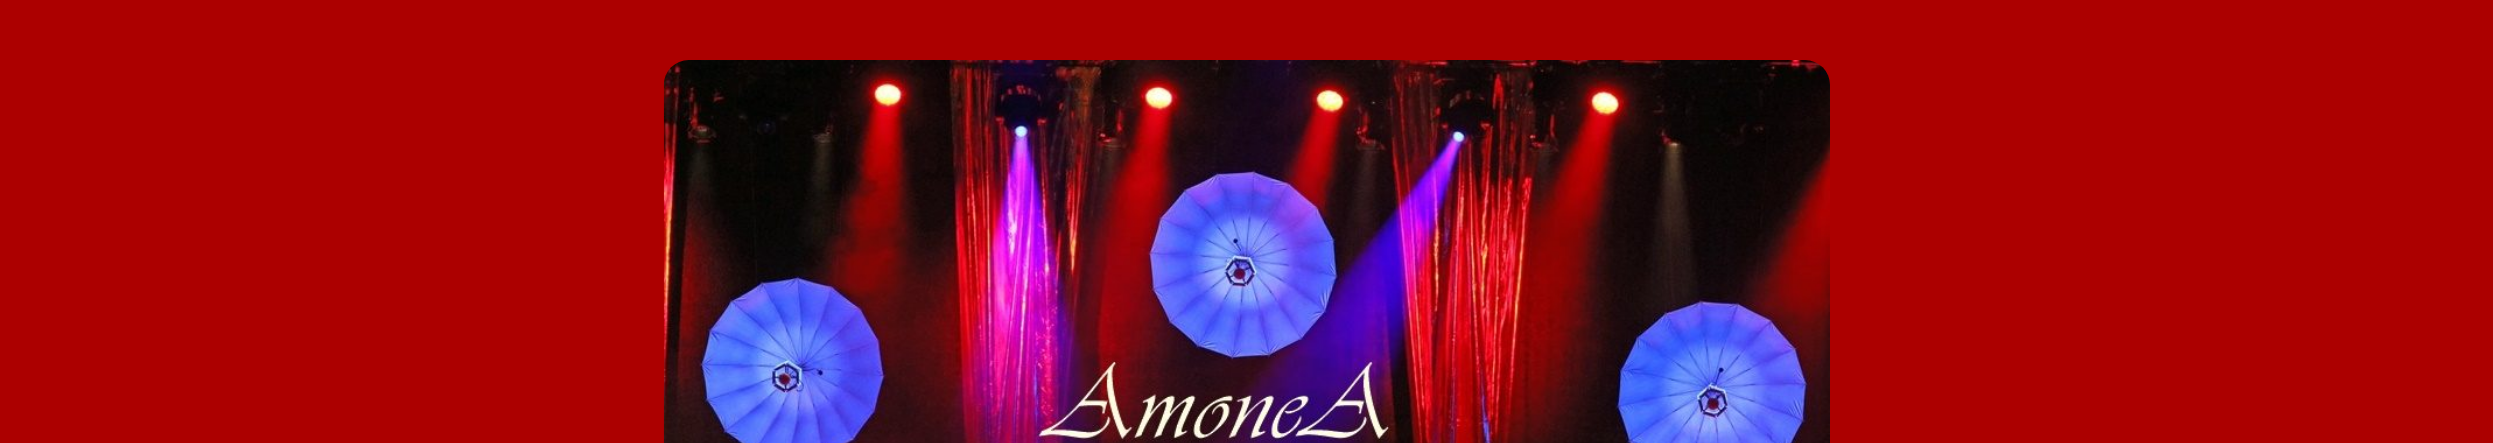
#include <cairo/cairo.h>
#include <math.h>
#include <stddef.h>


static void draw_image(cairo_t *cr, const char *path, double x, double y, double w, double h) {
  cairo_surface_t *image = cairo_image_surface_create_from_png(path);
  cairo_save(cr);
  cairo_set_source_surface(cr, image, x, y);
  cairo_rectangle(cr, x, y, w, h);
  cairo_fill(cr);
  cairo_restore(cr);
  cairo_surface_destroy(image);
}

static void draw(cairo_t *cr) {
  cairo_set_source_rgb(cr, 172 / 255.0, 0, 0);
  cairo_paint(cr);
  draw_image(cr, "images/1.png", 663, 60, 1167, 383);
}

int main(void) {
  cairo_surface_t *surface = cairo_image_surface_create(CAIRO_FORMAT_RGB24, 2493, 443);
  cairo_t *cr = cairo_create(surface);
  cairo_font_options_t *options = cairo_font_options_create();
  cairo_font_options_set_hint_metrics(options, CAIRO_HINT_METRICS_OFF);
  cairo_font_options_set_hint_style(options, CAIRO_HINT_STYLE_NONE);
  cairo_set_font_options(cr, options);
  cairo_set_miter_limit(cr, 4);
  draw(cr);
  cairo_surface_write_to_png(surface, "out.png");
  cairo_font_options_destroy(options);
  cairo_destroy(cr);
  cairo_surface_destroy(surface);
  return 0;
}
